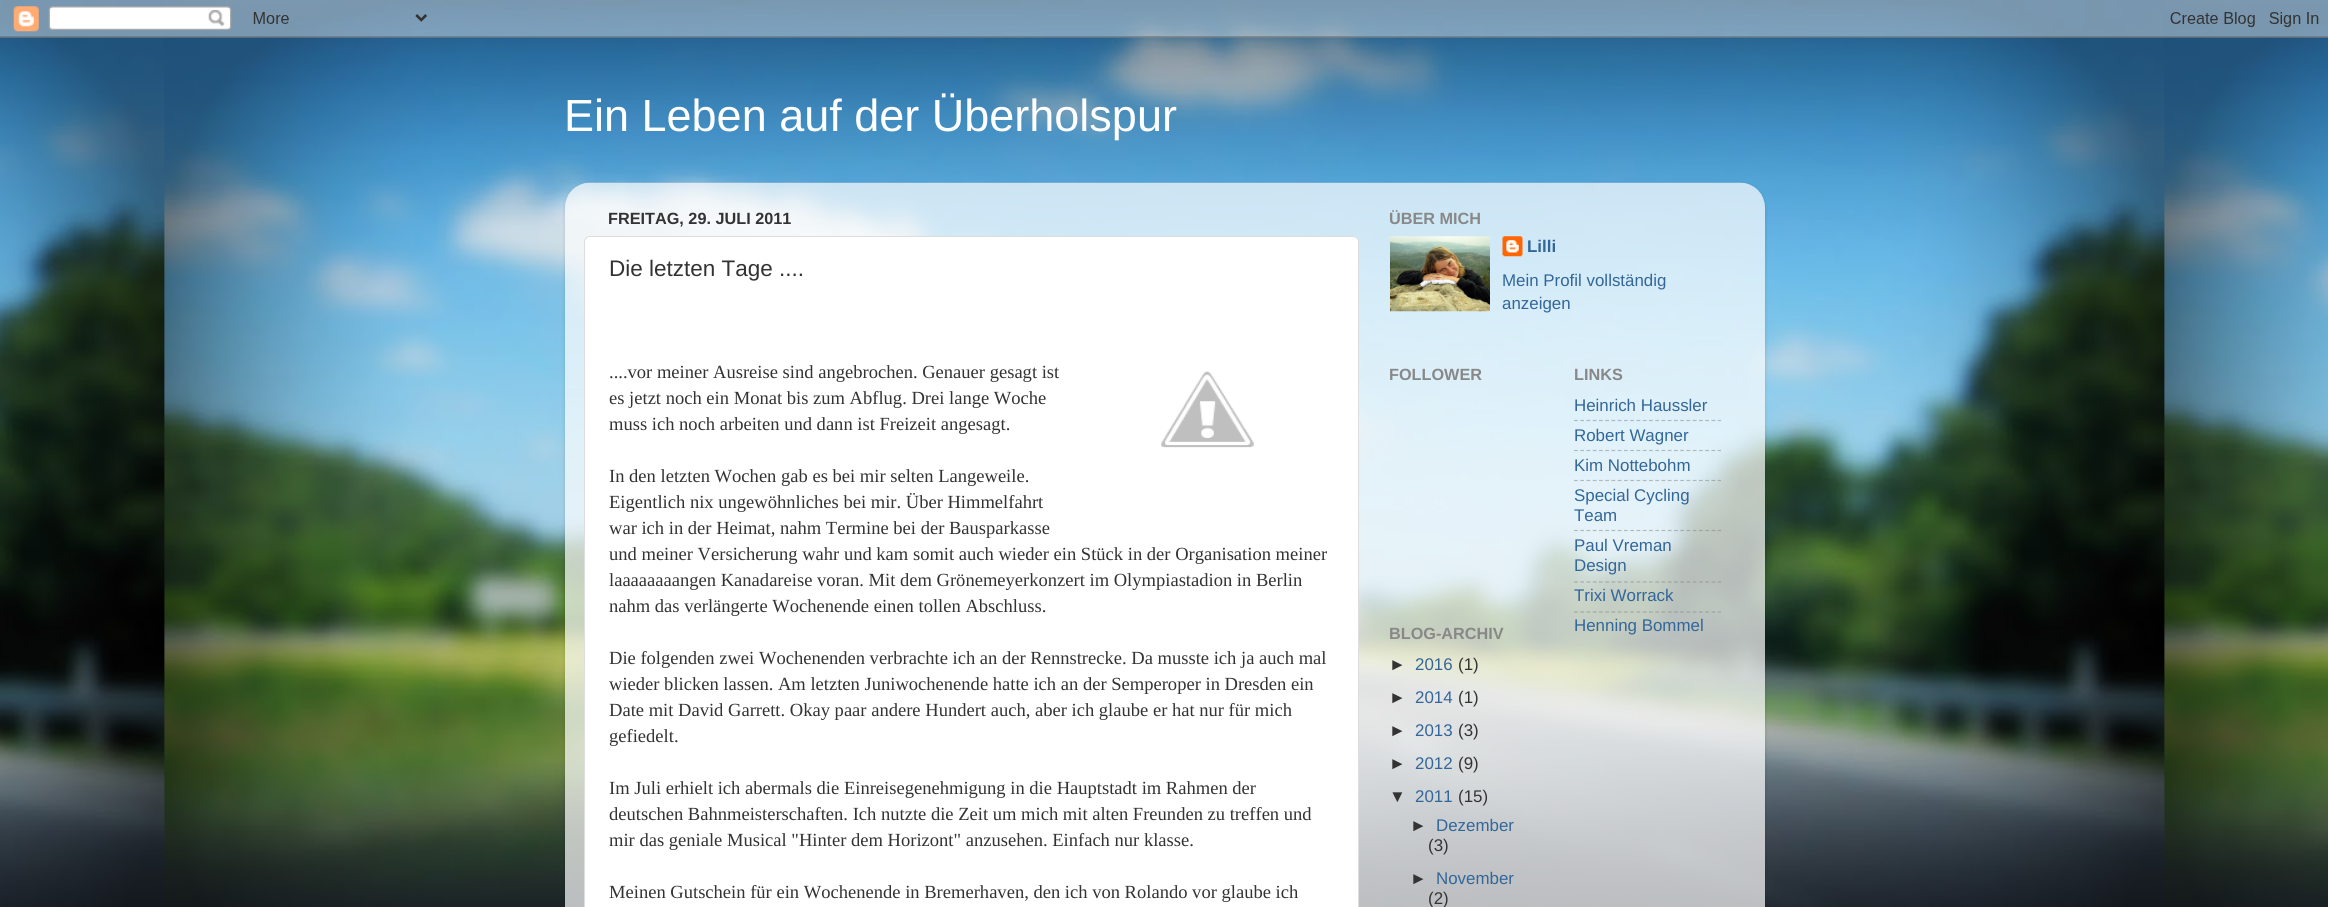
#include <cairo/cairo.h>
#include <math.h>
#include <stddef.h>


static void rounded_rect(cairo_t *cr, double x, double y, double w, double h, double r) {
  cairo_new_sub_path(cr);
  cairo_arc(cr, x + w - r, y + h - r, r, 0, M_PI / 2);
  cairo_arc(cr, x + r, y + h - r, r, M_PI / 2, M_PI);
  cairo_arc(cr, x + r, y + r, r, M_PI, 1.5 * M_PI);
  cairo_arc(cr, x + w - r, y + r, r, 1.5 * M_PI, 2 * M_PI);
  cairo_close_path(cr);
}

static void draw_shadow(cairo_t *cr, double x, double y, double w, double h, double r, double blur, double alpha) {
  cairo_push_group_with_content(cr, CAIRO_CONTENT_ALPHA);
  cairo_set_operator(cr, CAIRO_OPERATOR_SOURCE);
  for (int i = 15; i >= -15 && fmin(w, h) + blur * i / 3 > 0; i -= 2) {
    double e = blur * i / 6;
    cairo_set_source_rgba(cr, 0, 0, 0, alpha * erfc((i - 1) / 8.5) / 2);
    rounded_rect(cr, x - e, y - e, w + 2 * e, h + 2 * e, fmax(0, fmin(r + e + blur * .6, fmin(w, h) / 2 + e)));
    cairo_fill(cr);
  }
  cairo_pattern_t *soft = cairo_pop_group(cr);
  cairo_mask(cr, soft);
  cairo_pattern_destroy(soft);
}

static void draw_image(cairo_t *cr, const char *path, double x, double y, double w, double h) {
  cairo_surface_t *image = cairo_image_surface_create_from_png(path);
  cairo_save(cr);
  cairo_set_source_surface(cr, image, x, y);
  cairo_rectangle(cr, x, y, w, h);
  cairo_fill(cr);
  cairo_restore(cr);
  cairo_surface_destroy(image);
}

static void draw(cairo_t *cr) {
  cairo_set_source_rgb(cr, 1, 1, 1);
  cairo_paint(cr);
  draw_image(cr, "images/1.png", 0, 0, 2328, 907);
  draw_image(cr, "images/2.png", 0, 0, 2328, 38);
  cairo_save(cr);
  cairo_set_fill_rule(cr, CAIRO_FILL_RULE_EVEN_ODD);
  cairo_new_path(cr);
  cairo_move_to(cr, 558, 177);
  cairo_line_to(cr, 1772, 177);
  cairo_line_to(cr, 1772, 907);
  cairo_line_to(cr, 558, 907);
  cairo_close_path(cr);
  cairo_move_to(cr, 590, 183);
  cairo_line_to(cr, 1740, 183);
  cairo_curve_to(cr, 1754, 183, 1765, 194, 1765, 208);
  cairo_line_to(cr, 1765, 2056);
  cairo_line_to(cr, 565, 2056);
  cairo_line_to(cr, 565, 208);
  cairo_curve_to(cr, 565, 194, 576, 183, 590, 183);
  cairo_close_path(cr);
  cairo_clip(cr);
  cairo_set_source_rgb(cr, 0, 0, 0);
  draw_shadow(cr, 565, 184, 1200, 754, 25, 2, 0.15);
  cairo_restore(cr);
  draw_image(cr, "images/3.png", 565, 182, 1200, 725);
  cairo_set_source_rgb(cr, 1, 1, 1);
  rounded_rect(cr, 584.5, 236.5, 774, 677, 5.5);
  cairo_fill_preserve(cr);
  cairo_set_source_rgb(cr, 221 / 255.0, 221 / 255.0, 221 / 255.0);
  cairo_set_line_width(cr, 1);
  cairo_stroke(cr);
  draw_image(cr, "images/4.png", 1161, 371, 93, 77);
  draw_image(cr, "images/5.png", 1390, 236, 100, 76);
  draw_image(cr, "images/6.png", 1502, 236, 21, 21);
  cairo_new_path(cr);
  cairo_move_to(cr, 1574, 420.5);
  cairo_line_to(cr, 1721, 420.5);
  cairo_set_source_rgb(cr, 176 / 255.0, 185 / 255.0, 189 / 255.0);
  cairo_set_line_width(cr, 1.2);
  cairo_set_dash(cr, (double[]){3.75, 2.5}, 2, 0);
  cairo_stroke(cr);
  cairo_new_path(cr);
  cairo_move_to(cr, 1574, 450.5);
  cairo_line_to(cr, 1721, 450.5);
  cairo_set_source_rgba(cr, 128 / 255.0, 128 / 255.0, 128 / 255.0, 0.5);
  cairo_stroke(cr);
  cairo_new_path(cr);
  cairo_move_to(cr, 1574, 480.5);
  cairo_line_to(cr, 1721, 480.5);
  cairo_stroke(cr);
  cairo_new_path(cr);
  cairo_move_to(cr, 1574, 530.5);
  cairo_line_to(cr, 1721, 530.5);
  cairo_stroke(cr);
  cairo_new_path(cr);
  cairo_move_to(cr, 1574, 582);
  cairo_line_to(cr, 1721, 582);
  cairo_stroke(cr);
  cairo_new_path(cr);
  cairo_move_to(cr, 1574, 612);
  cairo_line_to(cr, 1721, 612);
  cairo_stroke(cr);
  cairo_select_font_face(cr, "Liberation Sans", CAIRO_FONT_SLANT_NORMAL, CAIRO_FONT_WEIGHT_NORMAL);
  cairo_set_font_size(cr, 45);
  cairo_set_source_rgb(cr, 1, 1, 1);
  cairo_move_to(cr, 564, 131);
  cairo_show_text(cr, "Ein Leben auf der Überholspur");
  cairo_select_font_face(cr, "Liberation Sans", CAIRO_FONT_SLANT_NORMAL, CAIRO_FONT_WEIGHT_BOLD);
  cairo_set_font_size(cr, 16.25);
  cairo_set_source_rgb(cr, 51 / 255.0, 51 / 255.0, 51 / 255.0);
  cairo_move_to(cr, 608, 224);
  cairo_show_text(cr, "FREITAG, 29. JULI 2011");
  cairo_select_font_face(cr, "Liberation Sans", CAIRO_FONT_SLANT_NORMAL, CAIRO_FONT_WEIGHT_NORMAL);
  cairo_set_font_size(cr, 22.5);
  cairo_move_to(cr, 609, 276);
  cairo_show_text(cr, "Die letzten Tage ....");
  cairo_select_font_face(cr, "Liberation Serif", CAIRO_FONT_SLANT_NORMAL, CAIRO_FONT_WEIGHT_NORMAL);
  cairo_set_font_size(cr, 18.55);
  cairo_move_to(cr, 609, 378);
  cairo_show_text(cr, "....vor meiner Ausreise sind angebrochen. Genauer gesagt ist");
  cairo_move_to(cr, 609, 404);
  cairo_show_text(cr, "es jetzt noch ein Monat bis zum Abflug. Drei lange Woche");
  cairo_move_to(cr, 609, 430);
  cairo_show_text(cr, "muss ich noch arbeiten und dann ist Freizeit angesagt.");
  cairo_move_to(cr, 609, 482);
  cairo_show_text(cr, "In den letzten Wochen gab es bei mir selten Langeweile.");
  cairo_move_to(cr, 609, 508);
  cairo_show_text(cr, "Eigentlich nix ungewöhnliches bei mir. Über Himmelfahrt");
  cairo_move_to(cr, 609, 534);
  cairo_show_text(cr, "war ich in der Heimat, nahm Termine bei der Bausparkasse");
  cairo_move_to(cr, 609, 560);
  cairo_show_text(cr, "und meiner Versicherung wahr und kam somit auch wieder ein Stück in der Organisation meiner");
  cairo_move_to(cr, 609, 586);
  cairo_show_text(cr, "laaaaaaaangen Kanadareise voran. Mit dem Grönemeyerkonzert im Olympiastadion in Berlin");
  cairo_move_to(cr, 609, 612);
  cairo_show_text(cr, "nahm das verlängerte Wochenende einen tollen Abschluss.");
  cairo_move_to(cr, 609, 664);
  cairo_show_text(cr, "Die folgenden zwei Wochenenden verbrachte ich an der Rennstrecke. Da musste ich ja auch mal");
  cairo_move_to(cr, 609, 690);
  cairo_show_text(cr, "wieder blicken lassen. Am letzten Juniwochenende hatte ich an der Semperoper in Dresden ein");
  cairo_move_to(cr, 609, 716);
  cairo_show_text(cr, "Date mit David Garrett. Okay paar andere Hundert auch, aber ich glaube er hat nur für mich");
  cairo_move_to(cr, 609, 742);
  cairo_show_text(cr, "gefiedelt.");
  cairo_move_to(cr, 609, 794);
  cairo_show_text(cr, "Im Juli erhielt ich abermals die Einreisegenehmigung in die Hauptstadt im Rahmen der");
  cairo_move_to(cr, 609, 820);
  cairo_show_text(cr, "deutschen Bahnmeisterschaften. Ich nutzte die Zeit um mich mit alten Freunden zu treffen und");
  cairo_move_to(cr, 609, 846);
  cairo_show_text(cr, "mir das geniale Musical \"Hinter dem Horizont\" anzusehen. Einfach nur klasse.");
  cairo_move_to(cr, 609, 898);
  cairo_show_text(cr, "Meinen Gutschein für ein Wochenende in Bremerhaven, den ich von Rolando vor glaube ich");
  cairo_select_font_face(cr, "Liberation Sans", CAIRO_FONT_SLANT_NORMAL, CAIRO_FONT_WEIGHT_BOLD);
  cairo_set_font_size(cr, 16.25);
  cairo_set_source_rgb(cr, 136 / 255.0, 136 / 255.0, 136 / 255.0);
  cairo_move_to(cr, 1389, 224);
  cairo_show_text(cr, "ÜBER MICH");
  cairo_set_font_size(cr, 16.9);
  cairo_set_source_rgb(cr, 51 / 255.0, 102 / 255.0, 153 / 255.0);
  cairo_move_to(cr, 1527, 252);
  cairo_show_text(cr, "Lilli");
  cairo_select_font_face(cr, "Liberation Sans", CAIRO_FONT_SLANT_NORMAL, CAIRO_FONT_WEIGHT_NORMAL);
  cairo_move_to(cr, 1502, 286);
  cairo_show_text(cr, "Mein Profil vollständig");
  cairo_move_to(cr, 1502, 309);
  cairo_show_text(cr, "anzeigen");
  cairo_select_font_face(cr, "Liberation Sans", CAIRO_FONT_SLANT_NORMAL, CAIRO_FONT_WEIGHT_BOLD);
  cairo_set_font_size(cr, 16.25);
  cairo_set_source_rgb(cr, 136 / 255.0, 136 / 255.0, 136 / 255.0);
  cairo_move_to(cr, 1389, 380);
  cairo_show_text(cr, "FOLLOWER");
  cairo_move_to(cr, 1389, 639);
  cairo_show_text(cr, "BLOG-ARCHIV");
  cairo_select_font_face(cr, "Liberation Sans", CAIRO_FONT_SLANT_NORMAL, CAIRO_FONT_WEIGHT_NORMAL);
  cairo_set_font_size(cr, 16.9);
  cairo_set_source_rgb(cr, 51 / 255.0, 51 / 255.0, 51 / 255.0);
  cairo_move_to(cr, 1389, 670);
  cairo_show_text(cr, "►");
  cairo_set_source_rgb(cr, 51 / 255.0, 102 / 255.0, 153 / 255.0);
  cairo_move_to(cr, 1415, 670);
  cairo_show_text(cr, "2016");
  cairo_set_source_rgb(cr, 51 / 255.0, 51 / 255.0, 51 / 255.0);
  cairo_move_to(cr, 1458, 670);
  cairo_show_text(cr, "(1)");
  cairo_move_to(cr, 1389, 703);
  cairo_show_text(cr, "►");
  cairo_set_source_rgb(cr, 51 / 255.0, 102 / 255.0, 153 / 255.0);
  cairo_move_to(cr, 1415, 703);
  cairo_show_text(cr, "2014");
  cairo_set_source_rgb(cr, 51 / 255.0, 51 / 255.0, 51 / 255.0);
  cairo_move_to(cr, 1458, 703);
  cairo_show_text(cr, "(1)");
  cairo_move_to(cr, 1389, 736);
  cairo_show_text(cr, "►");
  cairo_set_source_rgb(cr, 51 / 255.0, 102 / 255.0, 153 / 255.0);
  cairo_move_to(cr, 1415, 736);
  cairo_show_text(cr, "2013");
  cairo_set_source_rgb(cr, 51 / 255.0, 51 / 255.0, 51 / 255.0);
  cairo_move_to(cr, 1458, 736);
  cairo_show_text(cr, "(3)");
  cairo_move_to(cr, 1389, 769);
  cairo_show_text(cr, "►");
  cairo_set_source_rgb(cr, 51 / 255.0, 102 / 255.0, 153 / 255.0);
  cairo_move_to(cr, 1415, 769);
  cairo_show_text(cr, "2012");
  cairo_set_source_rgb(cr, 51 / 255.0, 51 / 255.0, 51 / 255.0);
  cairo_move_to(cr, 1458, 769);
  cairo_show_text(cr, "(9)");
  cairo_move_to(cr, 1389, 802);
  cairo_show_text(cr, "▼");
  cairo_set_source_rgb(cr, 51 / 255.0, 102 / 255.0, 153 / 255.0);
  cairo_move_to(cr, 1415, 802);
  cairo_show_text(cr, "2011");
  cairo_set_source_rgb(cr, 51 / 255.0, 51 / 255.0, 51 / 255.0);
  cairo_move_to(cr, 1458, 802);
  cairo_show_text(cr, "(15)");
  cairo_move_to(cr, 1410, 831);
  cairo_show_text(cr, "►");
  cairo_set_source_rgb(cr, 51 / 255.0, 102 / 255.0, 153 / 255.0);
  cairo_move_to(cr, 1436, 831);
  cairo_show_text(cr, "Dezember");
  cairo_set_source_rgb(cr, 51 / 255.0, 51 / 255.0, 51 / 255.0);
  cairo_move_to(cr, 1428, 851);
  cairo_show_text(cr, "(3)");
  cairo_move_to(cr, 1410, 884);
  cairo_show_text(cr, "►");
  cairo_set_source_rgb(cr, 51 / 255.0, 102 / 255.0, 153 / 255.0);
  cairo_move_to(cr, 1436, 884);
  cairo_show_text(cr, "November");
  cairo_set_source_rgb(cr, 51 / 255.0, 51 / 255.0, 51 / 255.0);
  cairo_move_to(cr, 1428, 904);
  cairo_show_text(cr, "(2)");
  cairo_select_font_face(cr, "Liberation Sans", CAIRO_FONT_SLANT_NORMAL, CAIRO_FONT_WEIGHT_BOLD);
  cairo_set_font_size(cr, 16.25);
  cairo_set_source_rgb(cr, 136 / 255.0, 136 / 255.0, 136 / 255.0);
  cairo_move_to(cr, 1574, 380);
  cairo_show_text(cr, "LINKS");
  cairo_select_font_face(cr, "Liberation Sans", CAIRO_FONT_SLANT_NORMAL, CAIRO_FONT_WEIGHT_NORMAL);
  cairo_set_font_size(cr, 16.9);
  cairo_set_source_rgb(cr, 51 / 255.0, 102 / 255.0, 153 / 255.0);
  cairo_move_to(cr, 1574, 411);
  cairo_show_text(cr, "Heinrich Haussler");
  cairo_move_to(cr, 1574, 441);
  cairo_show_text(cr, "Robert Wagner");
  cairo_move_to(cr, 1574, 471);
  cairo_show_text(cr, "Kim Nottebohm");
  cairo_move_to(cr, 1574, 501);
  cairo_show_text(cr, "Special Cycling");
  cairo_move_to(cr, 1574, 521);
  cairo_show_text(cr, "Team");
  cairo_move_to(cr, 1574, 551);
  cairo_show_text(cr, "Paul Vreman");
  cairo_move_to(cr, 1574, 571);
  cairo_show_text(cr, "Design");
  cairo_move_to(cr, 1574, 601);
  cairo_show_text(cr, "Trixi Worrack");
  cairo_move_to(cr, 1574, 631);
  cairo_show_text(cr, "Henning Bommel");
}

int main(void) {
  cairo_surface_t *surface = cairo_image_surface_create(CAIRO_FORMAT_RGB24, 2328, 907);
  cairo_t *cr = cairo_create(surface);
  cairo_font_options_t *options = cairo_font_options_create();
  cairo_font_options_set_hint_metrics(options, CAIRO_HINT_METRICS_OFF);
  cairo_font_options_set_hint_style(options, CAIRO_HINT_STYLE_NONE);
  cairo_set_font_options(cr, options);
  cairo_set_miter_limit(cr, 4);
  draw(cr);
  cairo_surface_write_to_png(surface, "out.png");
  cairo_font_options_destroy(options);
  cairo_destroy(cr);
  cairo_surface_destroy(surface);
  return 0;
}
